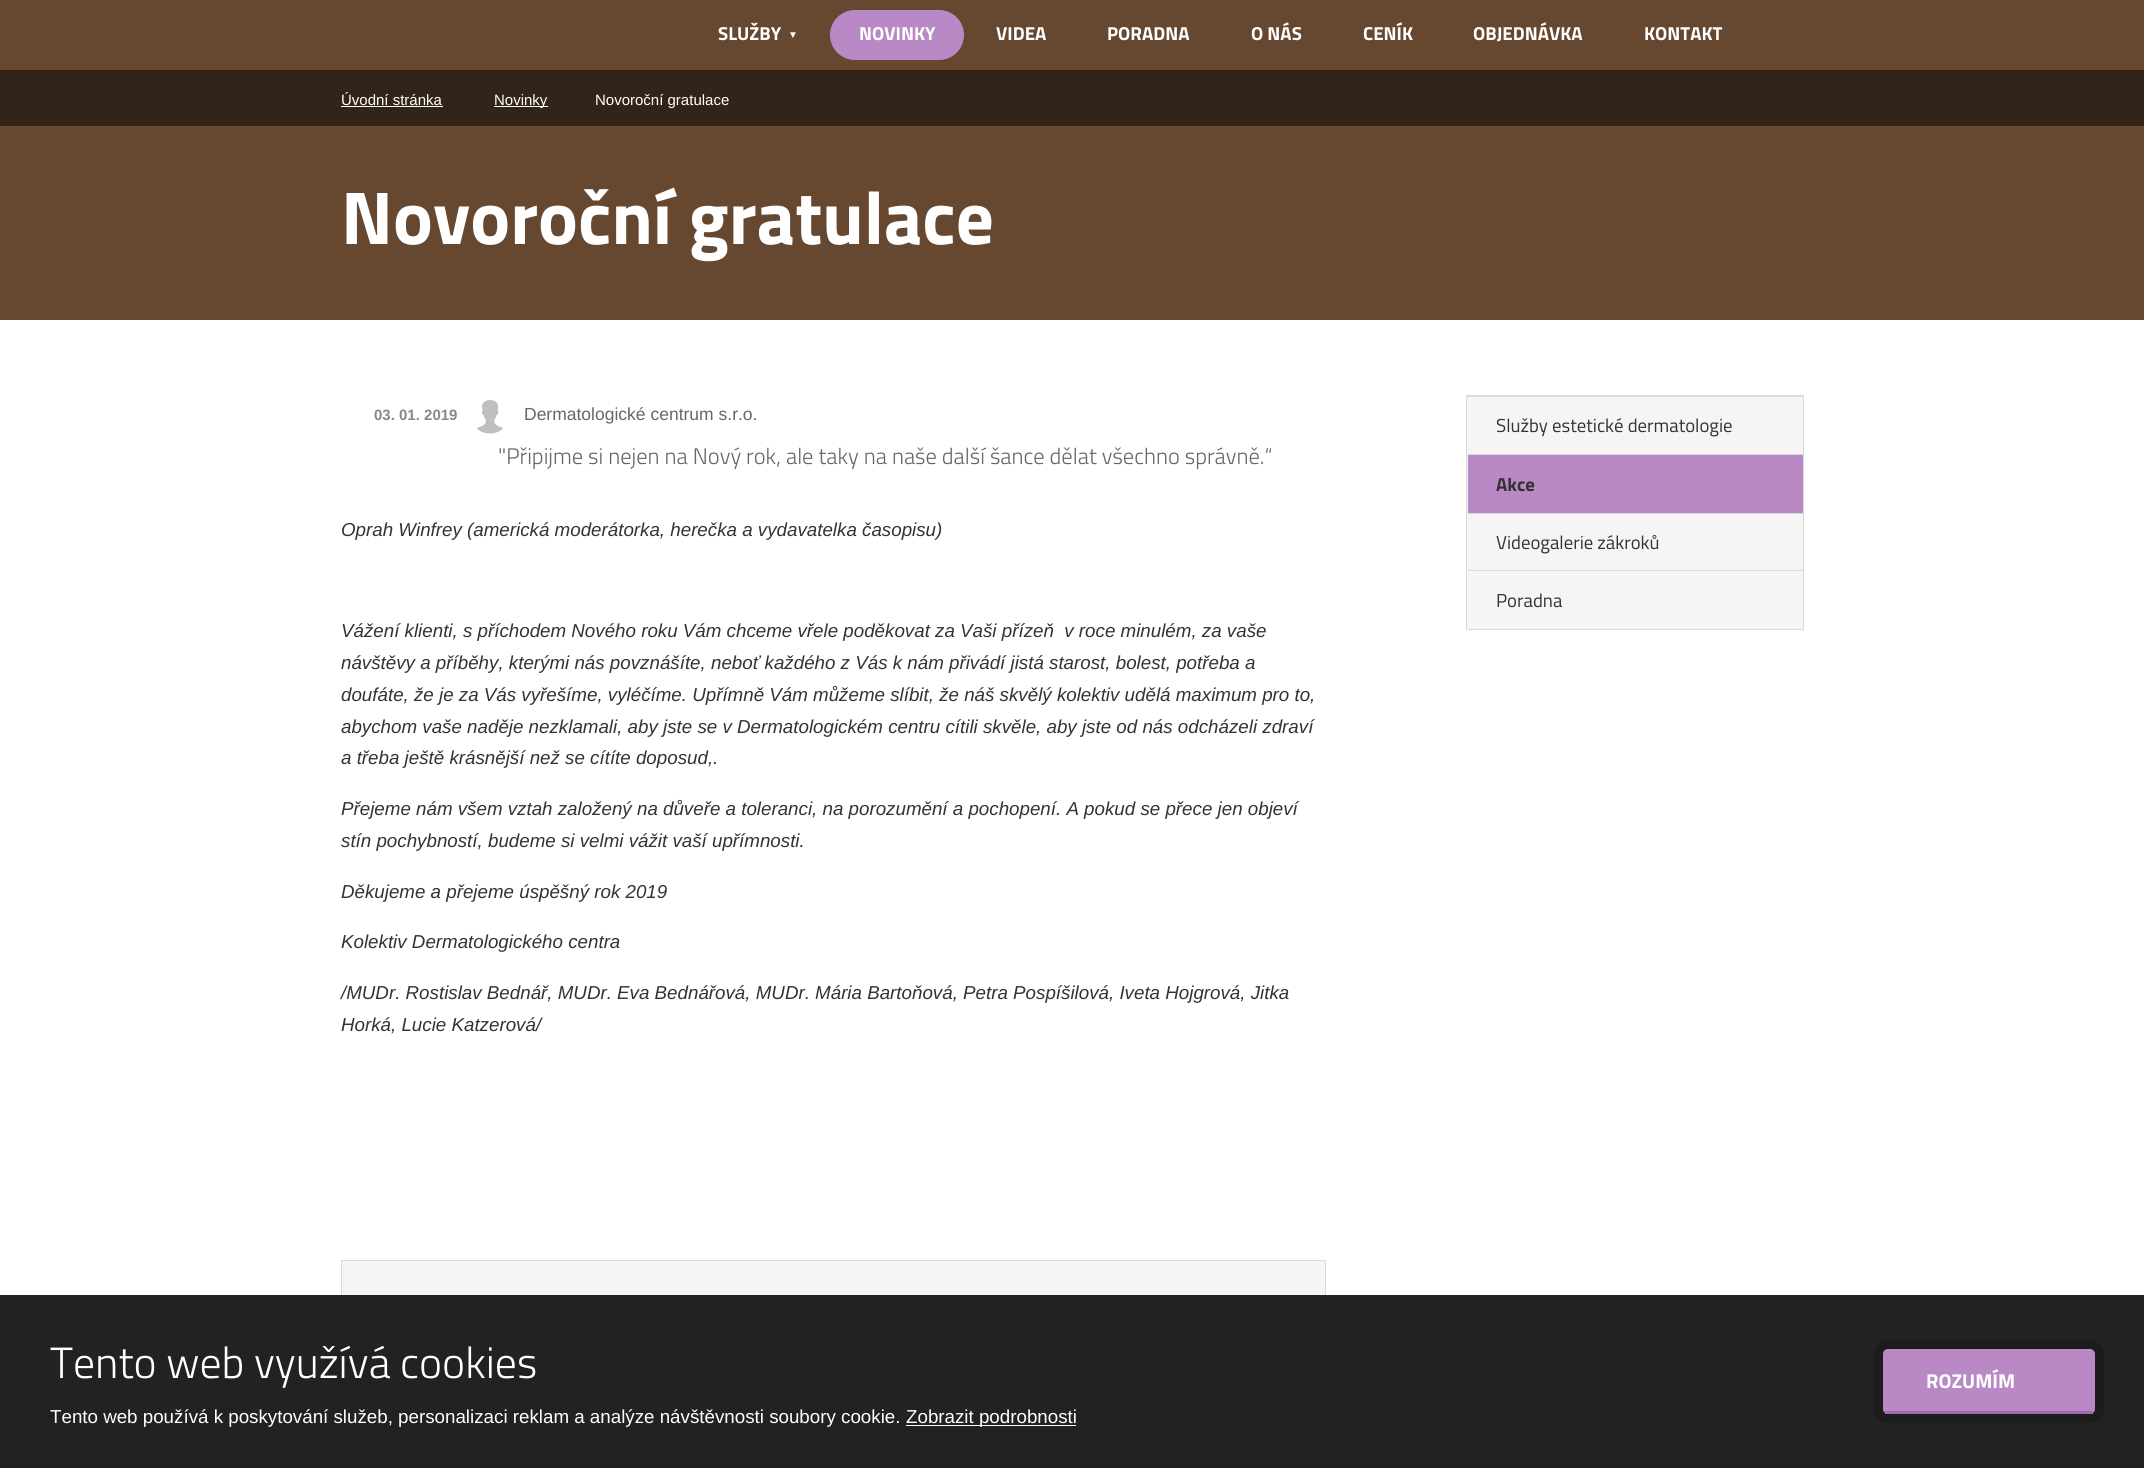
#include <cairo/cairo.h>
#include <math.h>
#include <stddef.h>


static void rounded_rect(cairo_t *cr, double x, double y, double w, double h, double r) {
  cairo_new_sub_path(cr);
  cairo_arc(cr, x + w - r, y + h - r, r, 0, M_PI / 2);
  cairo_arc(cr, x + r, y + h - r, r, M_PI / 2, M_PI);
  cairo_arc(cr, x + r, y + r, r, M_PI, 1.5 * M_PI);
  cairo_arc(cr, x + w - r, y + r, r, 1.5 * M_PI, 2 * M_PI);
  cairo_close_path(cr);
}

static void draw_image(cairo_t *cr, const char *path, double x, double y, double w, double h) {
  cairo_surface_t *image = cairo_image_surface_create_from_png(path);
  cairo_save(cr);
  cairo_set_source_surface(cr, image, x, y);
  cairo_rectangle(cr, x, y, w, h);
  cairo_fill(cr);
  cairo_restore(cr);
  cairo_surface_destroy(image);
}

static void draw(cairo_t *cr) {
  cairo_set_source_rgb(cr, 1, 1, 1);
  cairo_paint(cr);
  cairo_set_source_rgb(cr, 102 / 255.0, 72 / 255.0, 49 / 255.0);
  cairo_rectangle(cr, 0, 0, 2144, 70);
  cairo_fill(cr);
  cairo_set_source_rgb(cr, 184 / 255.0, 137 / 255.0, 197 / 255.0);
  rounded_rect(cr, 830, 10, 134, 50, 25);
  cairo_fill(cr);
  cairo_set_source_rgb(cr, 102 / 255.0, 72 / 255.0, 49 / 255.0);
  cairo_rectangle(cr, 0, 126, 2144, 194);
  cairo_fill(cr);
  cairo_set_source_rgb(cr, 50 / 255.0, 36 / 255.0, 24 / 255.0);
  cairo_rectangle(cr, 0, 70, 2144, 56);
  cairo_fill(cr);
  cairo_set_source_rgb(cr, 1, 1, 1);
  cairo_rectangle(cr, 341, 106, 102, 1);
  cairo_fill(cr);
  cairo_rectangle(cr, 494, 106, 54, 1);
  cairo_fill(cr);
  draw_image(cr, "images/1.png", 476, 400, 28, 34);
  cairo_set_source_rgb(cr, 245 / 255.0, 245 / 255.0, 245 / 255.0);
  cairo_rectangle(cr, 342, 1261, 983, 34);
  cairo_fill(cr);
  cairo_rectangle(cr, 341.5, 1260.5, 984, 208);
  cairo_set_source_rgb(cr, 217 / 255.0, 217 / 255.0, 217 / 255.0);
  cairo_set_line_width(cr, 1);
  cairo_stroke(cr);
  cairo_rectangle(cr, 1466, 395, 338, 2);
  cairo_fill(cr);
  cairo_set_source_rgb(cr, 245 / 255.0, 245 / 255.0, 245 / 255.0);
  cairo_rectangle(cr, 1467, 397, 336, 233);
  cairo_fill(cr);
  cairo_set_source_rgb(cr, 217 / 255.0, 217 / 255.0, 217 / 255.0);
  cairo_rectangle(cr, 1803, 396, 1, 234);
  cairo_fill(cr);
  cairo_rectangle(cr, 1466, 396, 1, 234);
  cairo_fill(cr);
  cairo_rectangle(cr, 1468, 454, 335, 1);
  cairo_fill(cr);
  cairo_set_source_rgb(cr, 184 / 255.0, 137 / 255.0, 197 / 255.0);
  cairo_rectangle(cr, 1468, 455, 335, 58);
  cairo_fill(cr);
  cairo_set_source_rgb(cr, 217 / 255.0, 217 / 255.0, 217 / 255.0);
  cairo_rectangle(cr, 1468, 513, 335, 1);
  cairo_fill(cr);
  cairo_rectangle(cr, 1468, 570, 335, 1);
  cairo_fill(cr);
  cairo_rectangle(cr, 1468, 629, 335, 1);
  cairo_fill(cr);
  cairo_set_source_rgb(cr, 34 / 255.0, 34 / 255.0, 34 / 255.0);
  cairo_rectangle(cr, 0, 1295, 2144, 173);
  cairo_fill(cr);
  cairo_set_source_rgb(cr, 1, 1, 1);
  cairo_rectangle(cr, 906, 1425, 170, 1);
  cairo_fill(cr);
  rounded_rect(cr, 1878.5, 1344.5, 221, 74, 9.5);
  cairo_set_source_rgb(cr, 28 / 255.0, 28 / 255.0, 28 / 255.0);
  cairo_set_line_width(cr, 9);
  cairo_stroke(cr);
  cairo_set_source_rgb(cr, 184 / 255.0, 137 / 255.0, 197 / 255.0);
  rounded_rect(cr, 1883, 1349, 212, 65, 5);
  cairo_fill(cr);
  cairo_set_source_rgb(cr, 163 / 255.0, 103 / 255.0, 180 / 255.0);
  cairo_rectangle(cr, 1885, 1411, 208, 3);
  cairo_fill(cr);
  cairo_select_font_face(cr, "Titillium Web", CAIRO_FONT_SLANT_NORMAL, CAIRO_FONT_WEIGHT_BOLD);
  cairo_set_font_size(cr, 18.75);
  cairo_set_source_rgb(cr, 1, 1, 1);
  cairo_move_to(cr, 718, 40);
  cairo_show_text(cr, "SLUŽBY");
  cairo_select_font_face(cr, "Liberation Serif", CAIRO_FONT_SLANT_NORMAL, CAIRO_FONT_WEIGHT_NORMAL);
  cairo_set_font_size(cr, 10);
  cairo_move_to(cr, 788, 38);
  cairo_show_text(cr, "▼");
  cairo_select_font_face(cr, "Titillium Web", CAIRO_FONT_SLANT_NORMAL, CAIRO_FONT_WEIGHT_BOLD);
  cairo_set_font_size(cr, 18.75);
  cairo_move_to(cr, 859, 40);
  cairo_show_text(cr, "NOVINKY");
  cairo_move_to(cr, 996, 40);
  cairo_show_text(cr, "VIDEA");
  cairo_move_to(cr, 1107, 40);
  cairo_show_text(cr, "PORADNA");
  cairo_move_to(cr, 1251, 40);
  cairo_show_text(cr, "O NÁS");
  cairo_move_to(cr, 1363, 40);
  cairo_show_text(cr, "CENÍK");
  cairo_move_to(cr, 1473, 40);
  cairo_show_text(cr, "OBJEDNÁVKA");
  cairo_move_to(cr, 1644, 40);
  cairo_show_text(cr, "KONTAKT");
  cairo_select_font_face(cr, "Liberation Sans", CAIRO_FONT_SLANT_NORMAL, CAIRO_FONT_WEIGHT_NORMAL);
  cairo_set_font_size(cr, 15);
  cairo_move_to(cr, 341, 105);
  cairo_show_text(cr, "Úvodní stránka");
  cairo_move_to(cr, 494, 105);
  cairo_show_text(cr, "Novinky");
  cairo_move_to(cr, 595, 105);
  cairo_show_text(cr, "Novoroční gratulace");
  cairo_select_font_face(cr, "Titillium Web", CAIRO_FONT_SLANT_NORMAL, CAIRO_FONT_WEIGHT_BOLD);
  cairo_set_font_size(cr, 75);
  cairo_move_to(cr, 341, 244);
  cairo_show_text(cr, "Novoroční gratulace");
  cairo_select_font_face(cr, "Liberation Sans", CAIRO_FONT_SLANT_NORMAL, CAIRO_FONT_WEIGHT_BOLD);
  cairo_set_font_size(cr, 15);
  cairo_set_source_rgb(cr, 136 / 255.0, 136 / 255.0, 136 / 255.0);
  cairo_move_to(cr, 374, 420);
  cairo_show_text(cr, "03. 01. 2019");
  cairo_select_font_face(cr, "Liberation Sans", CAIRO_FONT_SLANT_NORMAL, CAIRO_FONT_WEIGHT_NORMAL);
  cairo_set_font_size(cr, 17.5);
  cairo_set_source_rgb(cr, 102 / 255.0, 102 / 255.0, 102 / 255.0);
  cairo_move_to(cr, 524, 420);
  cairo_show_text(cr, "Dermatologické centrum s.r.o.");
  cairo_select_font_face(cr, "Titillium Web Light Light", CAIRO_FONT_SLANT_NORMAL, CAIRO_FONT_WEIGHT_NORMAL);
  cairo_set_font_size(cr, 22.5);
  cairo_move_to(cr, 498, 464);
  cairo_show_text(cr, "\"Připijme si nejen na Nový rok, ale taky na naše další šance dělat všechno správně.“");
  cairo_select_font_face(cr, "Liberation Sans", CAIRO_FONT_SLANT_ITALIC, CAIRO_FONT_WEIGHT_NORMAL);
  cairo_set_font_size(cr, 18.75);
  cairo_set_source_rgb(cr, 51 / 255.0, 51 / 255.0, 51 / 255.0);
  cairo_move_to(cr, 341, 536);
  cairo_show_text(cr, "Oprah Winfrey (americká moderátorka, herečka a vydavatelka časopisu)");
  cairo_move_to(cr, 341, 637);
  cairo_show_text(cr, "Vážení klienti, s příchodem Nového roku Vám chceme vřele poděkovat za Vaši přízeň  v roce minulém, za vaše");
  cairo_move_to(cr, 341, 669);
  cairo_show_text(cr, "návštěvy a příběhy, kterými nás povznášíte, neboť každého z Vás k nám přivádí jistá starost, bolest, potřeba a");
  cairo_move_to(cr, 341, 701);
  cairo_show_text(cr, "doufáte, že je za Vás vyřešíme, vyléčíme. Upřímně Vám můžeme slíbit, že náš skvělý kolektiv udělá maximum pro to,");
  cairo_move_to(cr, 341, 733);
  cairo_show_text(cr, "abychom vaše naděje nezklamali, aby jste se v Dermatologickém centru cítili skvěle, aby jste od nás odcházeli zdraví");
  cairo_move_to(cr, 341, 764);
  cairo_show_text(cr, "a třeba ještě krásnější než se cítíte doposud,.");
  cairo_move_to(cr, 341, 815);
  cairo_show_text(cr, "Přejeme nám všem vztah založený na důveře a toleranci, na porozumění a pochopení. A pokud se přece jen objeví");
  cairo_move_to(cr, 341, 847);
  cairo_show_text(cr, "stín pochybností, budeme si velmi vážit vaší upřímnosti.");
  cairo_move_to(cr, 341, 898);
  cairo_show_text(cr, "Děkujeme a přejeme úspěšný rok 2019");
  cairo_move_to(cr, 341, 948);
  cairo_show_text(cr, "Kolektiv Dermatologického centra");
  cairo_move_to(cr, 341, 999);
  cairo_show_text(cr, "/MUDr. Rostislav Bednář, MUDr. Eva Bednářová, MUDr. Mária Bartoňová, Petra Pospíšilová, Iveta Hojgrová, Jitka");
  cairo_move_to(cr, 341, 1031);
  cairo_show_text(cr, "Horká, Lucie Katzerová/");
  cairo_select_font_face(cr, "Titillium Web", CAIRO_FONT_SLANT_NORMAL, CAIRO_FONT_WEIGHT_NORMAL);
  cairo_move_to(cr, 1496, 432);
  cairo_show_text(cr, "Služby estetické dermatologie");
  cairo_select_font_face(cr, "Titillium Web", CAIRO_FONT_SLANT_NORMAL, CAIRO_FONT_WEIGHT_BOLD);
  cairo_move_to(cr, 1496, 491);
  cairo_show_text(cr, "Akce");
  cairo_select_font_face(cr, "Titillium Web", CAIRO_FONT_SLANT_NORMAL, CAIRO_FONT_WEIGHT_NORMAL);
  cairo_move_to(cr, 1496, 549);
  cairo_show_text(cr, "Videogalerie zákroků");
  cairo_move_to(cr, 1496, 607);
  cairo_show_text(cr, "Poradna");
  cairo_select_font_face(cr, "Titillium Web Light Light", CAIRO_FONT_SLANT_NORMAL, CAIRO_FONT_WEIGHT_NORMAL);
  cairo_set_font_size(cr, 43.75);
  cairo_set_source_rgb(cr, 1, 1, 1);
  cairo_move_to(cr, 50, 1378);
  cairo_show_text(cr, "Tento web využívá cookies");
  cairo_select_font_face(cr, "Liberation Sans", CAIRO_FONT_SLANT_NORMAL, CAIRO_FONT_WEIGHT_NORMAL);
  cairo_set_font_size(cr, 18.75);
  cairo_move_to(cr, 50, 1423);
  cairo_show_text(cr, "Tento web používá k poskytování služeb, personalizaci reklam a analýze návštěvnosti soubory cookie.");
  cairo_move_to(cr, 906, 1423);
  cairo_show_text(cr, "Zobrazit podrobnosti");
  cairo_select_font_face(cr, "Titillium Web", CAIRO_FONT_SLANT_NORMAL, CAIRO_FONT_WEIGHT_BOLD);
  cairo_set_font_size(cr, 20);
  cairo_move_to(cr, 1926, 1388);
  cairo_show_text(cr, "ROZUMÍM");
}

int main(void) {
  cairo_surface_t *surface = cairo_image_surface_create(CAIRO_FORMAT_RGB24, 2144, 1468);
  cairo_t *cr = cairo_create(surface);
  cairo_font_options_t *options = cairo_font_options_create();
  cairo_font_options_set_hint_metrics(options, CAIRO_HINT_METRICS_OFF);
  cairo_font_options_set_hint_style(options, CAIRO_HINT_STYLE_NONE);
  cairo_set_font_options(cr, options);
  cairo_set_miter_limit(cr, 4);
  draw(cr);
  cairo_surface_write_to_png(surface, "out.png");
  cairo_font_options_destroy(options);
  cairo_destroy(cr);
  cairo_surface_destroy(surface);
  return 0;
}
